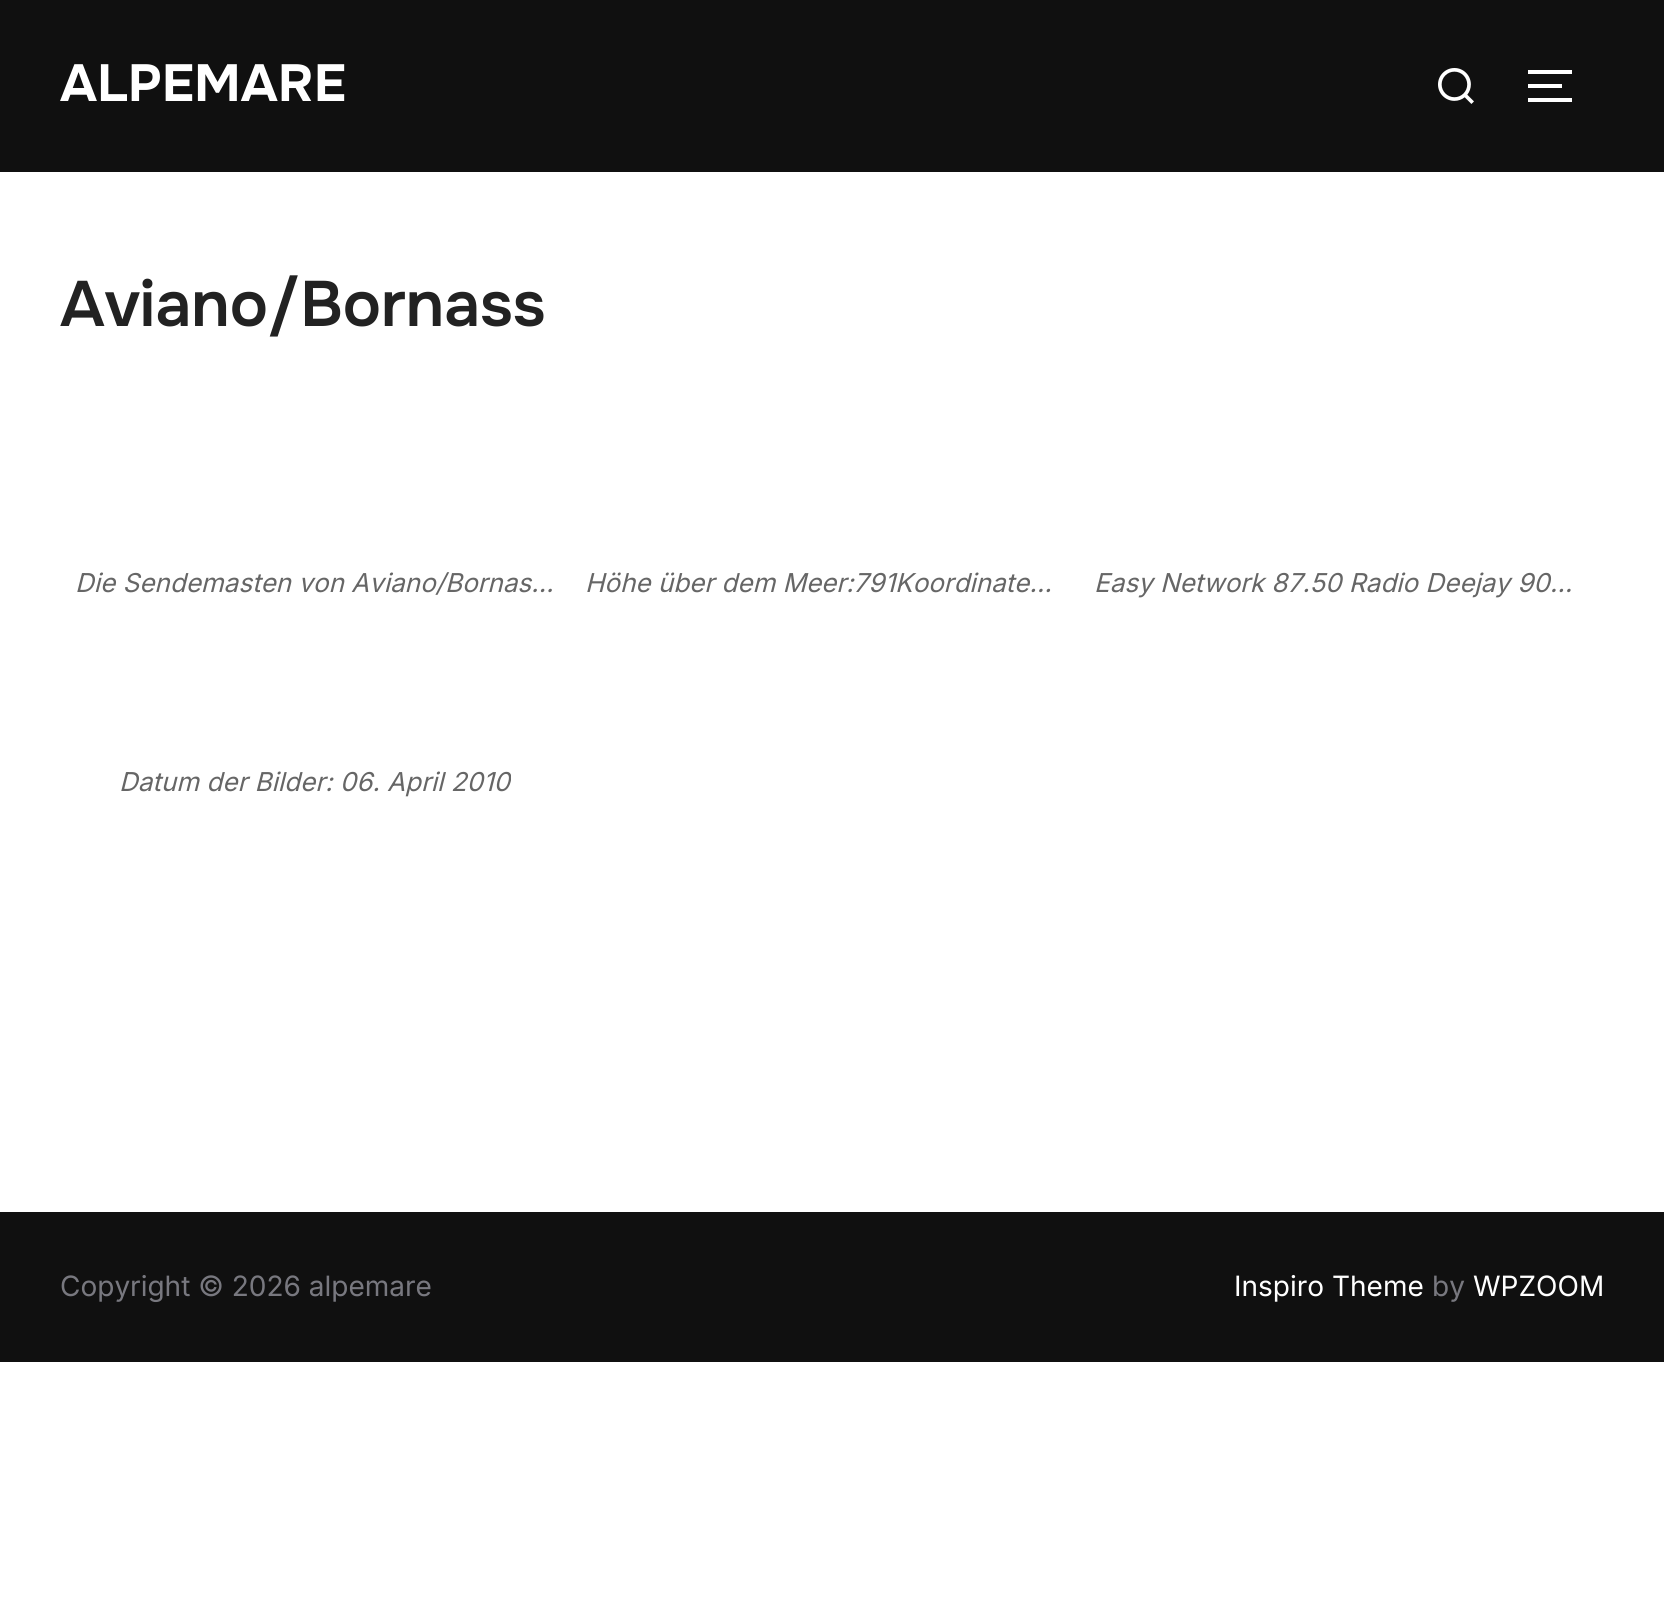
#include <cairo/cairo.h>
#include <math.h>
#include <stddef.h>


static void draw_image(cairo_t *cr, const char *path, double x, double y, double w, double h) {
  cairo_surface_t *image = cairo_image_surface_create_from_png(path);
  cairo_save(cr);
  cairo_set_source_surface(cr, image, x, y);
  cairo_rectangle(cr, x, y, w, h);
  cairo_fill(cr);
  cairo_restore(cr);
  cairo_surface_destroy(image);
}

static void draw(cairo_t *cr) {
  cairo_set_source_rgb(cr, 1, 1, 1);
  cairo_paint(cr);
  cairo_set_source_rgb(cr, 16 / 255.0, 16 / 255.0, 16 / 255.0);
  cairo_rectangle(cr, 0, 0, 1664, 172);
  cairo_fill(cr);
  draw_image(cr, "images/1.png", 1438, 68, 36, 36);
  cairo_set_source_rgb(cr, 1, 1, 1);
  cairo_rectangle(cr, 1528, 70, 44, 4);
  cairo_fill(cr);
  cairo_rectangle(cr, 1528, 84, 34, 4);
  cairo_fill(cr);
  cairo_rectangle(cr, 1528, 98, 44, 4);
  cairo_fill(cr);
  cairo_set_source_rgb(cr, 16 / 255.0, 16 / 255.0, 16 / 255.0);
  cairo_rectangle(cr, 0, 1212, 1664, 150);
  cairo_fill(cr);
  cairo_select_font_face(cr, "Onest", CAIRO_FONT_SLANT_NORMAL, CAIRO_FONT_WEIGHT_BOLD);
  cairo_set_font_size(cr, 52);
  cairo_set_source_rgb(cr, 1, 1, 1);
  cairo_move_to(cr, 60, 101);
  cairo_show_text(cr, "ALPEMARE");
  cairo_select_font_face(cr, "Onest SemiBold", CAIRO_FONT_SLANT_NORMAL, CAIRO_FONT_WEIGHT_NORMAL);
  cairo_set_font_size(cr, 64);
  cairo_set_source_rgb(cr, 34 / 255.0, 34 / 255.0, 34 / 255.0);
  cairo_move_to(cr, 60, 326);
  cairo_show_text(cr, "Aviano/Bornass");
  cairo_select_font_face(cr, "Inter", CAIRO_FONT_SLANT_ITALIC, CAIRO_FONT_WEIGHT_NORMAL);
  cairo_set_font_size(cr, 26);
  cairo_set_source_rgb(cr, 102 / 255.0, 102 / 255.0, 102 / 255.0);
  cairo_move_to(cr, 75, 592);
  cairo_show_text(cr, "Die Sendemasten von Aviano/Bornas…");
  cairo_move_to(cr, 585, 592);
  cairo_show_text(cr, "Höhe über dem Meer:791Koordinate…");
  cairo_move_to(cr, 1094, 592);
  cairo_show_text(cr, "Easy Network 87.50 Radio Deejay 90…");
  cairo_move_to(cr, 119, 791);
  cairo_show_text(cr, "Datum der Bilder: 06. April 2010");
  cairo_select_font_face(cr, "Inter", CAIRO_FONT_SLANT_NORMAL, CAIRO_FONT_WEIGHT_NORMAL);
  cairo_set_font_size(cr, 28);
  cairo_set_source_rgb(cr, 120 / 255.0, 120 / 255.0, 127 / 255.0);
  cairo_move_to(cr, 60, 1296);
  cairo_show_text(cr, "Copyright © 2026 alpemare");
  cairo_set_source_rgb(cr, 1, 1, 1);
  cairo_move_to(cr, 1234, 1296);
  cairo_show_text(cr, "Inspiro Theme");
  cairo_set_source_rgb(cr, 120 / 255.0, 120 / 255.0, 127 / 255.0);
  cairo_move_to(cr, 1432, 1296);
  cairo_show_text(cr, "by");
  cairo_set_source_rgb(cr, 1, 1, 1);
  cairo_move_to(cr, 1473, 1296);
  cairo_show_text(cr, "WPZOOM");
}

int main(void) {
  cairo_surface_t *surface = cairo_image_surface_create(CAIRO_FORMAT_RGB24, 1664, 1602);
  cairo_t *cr = cairo_create(surface);
  cairo_font_options_t *options = cairo_font_options_create();
  cairo_font_options_set_hint_metrics(options, CAIRO_HINT_METRICS_OFF);
  cairo_font_options_set_hint_style(options, CAIRO_HINT_STYLE_NONE);
  cairo_set_font_options(cr, options);
  cairo_set_miter_limit(cr, 4);
  draw(cr);
  cairo_surface_write_to_png(surface, "out.png");
  cairo_font_options_destroy(options);
  cairo_destroy(cr);
  cairo_surface_destroy(surface);
  return 0;
}
